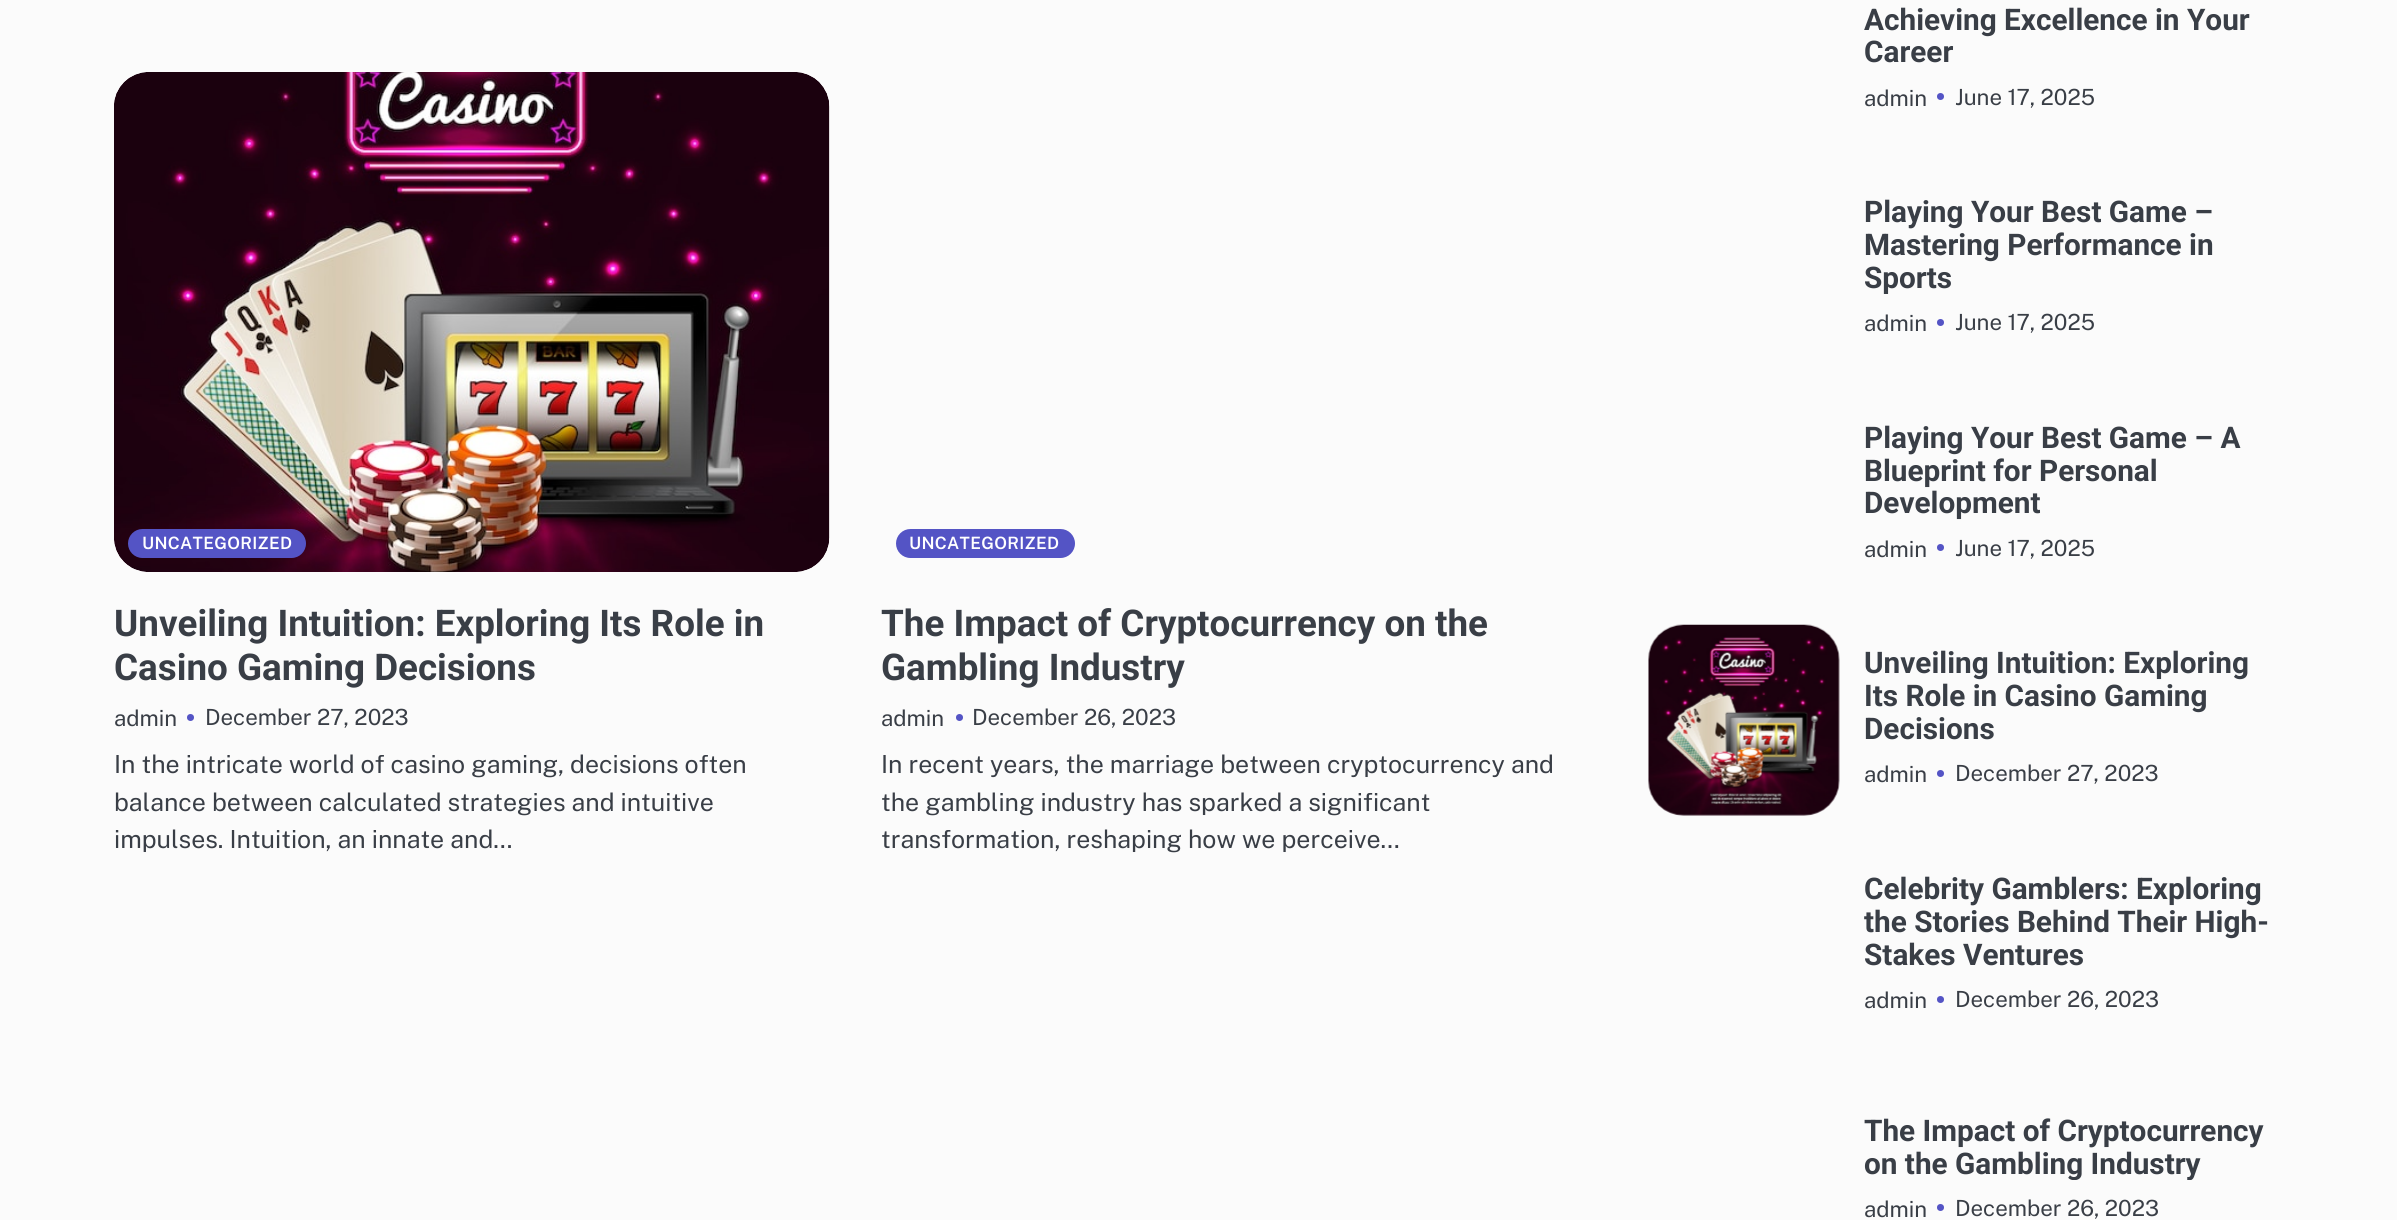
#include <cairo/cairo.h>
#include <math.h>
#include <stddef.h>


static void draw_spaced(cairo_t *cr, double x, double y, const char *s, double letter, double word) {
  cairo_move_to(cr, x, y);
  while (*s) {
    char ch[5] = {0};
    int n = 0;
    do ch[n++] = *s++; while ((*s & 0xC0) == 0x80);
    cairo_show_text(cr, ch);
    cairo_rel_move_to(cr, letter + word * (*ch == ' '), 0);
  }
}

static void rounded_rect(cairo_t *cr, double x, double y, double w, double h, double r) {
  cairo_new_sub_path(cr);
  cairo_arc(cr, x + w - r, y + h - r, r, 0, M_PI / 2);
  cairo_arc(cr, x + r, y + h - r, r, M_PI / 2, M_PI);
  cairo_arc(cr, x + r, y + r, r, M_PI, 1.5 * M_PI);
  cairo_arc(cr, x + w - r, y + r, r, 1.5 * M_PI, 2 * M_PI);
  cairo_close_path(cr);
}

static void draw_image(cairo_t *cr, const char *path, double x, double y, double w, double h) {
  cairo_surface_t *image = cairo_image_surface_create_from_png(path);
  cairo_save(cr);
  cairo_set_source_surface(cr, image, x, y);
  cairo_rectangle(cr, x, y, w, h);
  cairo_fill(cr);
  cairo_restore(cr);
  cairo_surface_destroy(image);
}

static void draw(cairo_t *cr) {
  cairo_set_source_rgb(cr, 251 / 255.0, 251 / 255.0, 251 / 255.0);
  cairo_paint(cr);
  draw_image(cr, "images/1.png", 114, 72, 716, 500);
  cairo_set_source_rgb(cr, 84 / 255.0, 84 / 255.0, 197 / 255.0);
  rounded_rect(cr, 128, 529, 178, 29, 14.5);
  cairo_fill(cr);
  cairo_arc(cr, 190.5, 717.5, 3.5, 0, 2 * M_PI);
  cairo_fill(cr);
  rounded_rect(cr, 896, 529, 179, 29, 14.5);
  cairo_fill(cr);
  cairo_arc(cr, 959.5, 717.5, 3.5, 0, 2 * M_PI);
  cairo_fill(cr);
  cairo_arc(cr, 1940.5, 96.5, 3.5, 0, 2 * M_PI);
  cairo_fill(cr);
  cairo_arc(cr, 1940.5, 322.5, 3.5, 0, 2 * M_PI);
  cairo_fill(cr);
  cairo_arc(cr, 1940.5, 547.5, 3.5, 0, 2 * M_PI);
  cairo_fill(cr);
  draw_image(cr, "images/2.png", 1648, 624, 192, 192);
  cairo_arc(cr, 1940.5, 773.5, 3.5, 0, 2 * M_PI);
  cairo_fill(cr);
  cairo_arc(cr, 1940.5, 999.5, 3.5, 0, 2 * M_PI);
  cairo_fill(cr);
  cairo_arc(cr, 1940.5, 1207.5, 3.5, 0, 2 * M_PI);
  cairo_fill(cr);
  cairo_select_font_face(cr, "Public Sans SemiBold", CAIRO_FONT_SLANT_NORMAL, CAIRO_FONT_WEIGHT_NORMAL);
  cairo_set_font_size(cr, 17);
  cairo_set_source_rgb(cr, 1, 1, 1);
  draw_spaced(cr, 142, 549, "UNCATEGORIZED", 0.3, 0);
  cairo_select_font_face(cr, "Roboto", CAIRO_FONT_SLANT_NORMAL, CAIRO_FONT_WEIGHT_BOLD);
  cairo_set_font_size(cr, 36.8);
  cairo_set_source_rgb(cr, 57 / 255.0, 62 / 255.0, 70 / 255.0);
  cairo_move_to(cr, 114, 636);
  cairo_show_text(cr, "Unveiling Intuition: Exploring Its Role in");
  cairo_move_to(cr, 114, 680);
  cairo_show_text(cr, "Casino Gaming Decisions");
  cairo_select_font_face(cr, "Public Sans", CAIRO_FONT_SLANT_NORMAL, CAIRO_FONT_WEIGHT_NORMAL);
  cairo_set_font_size(cr, 22.25);
  cairo_move_to(cr, 114, 726);
  cairo_show_text(cr, "admin");
  cairo_move_to(cr, 205, 725);
  cairo_show_text(cr, "December 27, 2023");
  cairo_set_font_size(cr, 24.9);
  cairo_move_to(cr, 114, 773);
  cairo_show_text(cr, "In the intricate world of casino gaming, decisions often");
  cairo_move_to(cr, 114, 811);
  cairo_show_text(cr, "balance between calculated strategies and intuitive");
  cairo_move_to(cr, 114, 848);
  cairo_show_text(cr, "impulses. Intuition, an innate and…");
  cairo_select_font_face(cr, "Public Sans SemiBold", CAIRO_FONT_SLANT_NORMAL, CAIRO_FONT_WEIGHT_NORMAL);
  cairo_set_font_size(cr, 17);
  cairo_set_source_rgb(cr, 1, 1, 1);
  draw_spaced(cr, 909, 549, "UNCATEGORIZED", 0.3, 0);
  cairo_select_font_face(cr, "Roboto", CAIRO_FONT_SLANT_NORMAL, CAIRO_FONT_WEIGHT_BOLD);
  cairo_set_font_size(cr, 36.8);
  cairo_set_source_rgb(cr, 57 / 255.0, 62 / 255.0, 70 / 255.0);
  cairo_move_to(cr, 881, 636);
  cairo_show_text(cr, "The Impact of Cryptocurrency on the");
  cairo_move_to(cr, 881, 680);
  cairo_show_text(cr, "Gambling Industry");
  cairo_select_font_face(cr, "Public Sans", CAIRO_FONT_SLANT_NORMAL, CAIRO_FONT_WEIGHT_NORMAL);
  cairo_set_font_size(cr, 22.25);
  cairo_move_to(cr, 881, 726);
  cairo_show_text(cr, "admin");
  cairo_move_to(cr, 972, 725);
  cairo_show_text(cr, "December 26, 2023");
  cairo_set_font_size(cr, 24.9);
  cairo_move_to(cr, 881, 773);
  cairo_show_text(cr, "In recent years, the marriage between cryptocurrency and");
  cairo_move_to(cr, 881, 811);
  cairo_show_text(cr, "the gambling industry has sparked a significant");
  cairo_move_to(cr, 881, 848);
  cairo_show_text(cr, "transformation, reshaping how we perceive…");
  cairo_select_font_face(cr, "Roboto", CAIRO_FONT_SLANT_NORMAL, CAIRO_FONT_WEIGHT_BOLD);
  cairo_set_font_size(cr, 29.75);
  cairo_move_to(cr, 1864, 30);
  cairo_show_text(cr, "Achieving Excellence in Your");
  cairo_move_to(cr, 1864, 62);
  cairo_show_text(cr, "Career");
  cairo_select_font_face(cr, "Public Sans", CAIRO_FONT_SLANT_NORMAL, CAIRO_FONT_WEIGHT_NORMAL);
  cairo_set_font_size(cr, 22.25);
  cairo_move_to(cr, 1864, 106);
  cairo_show_text(cr, "admin");
  cairo_move_to(cr, 1955, 105);
  cairo_show_text(cr, "June 17, 2025");
  cairo_select_font_face(cr, "Roboto", CAIRO_FONT_SLANT_NORMAL, CAIRO_FONT_WEIGHT_BOLD);
  cairo_set_font_size(cr, 29.75);
  cairo_move_to(cr, 1864, 222);
  cairo_show_text(cr, "Playing Your Best Game –");
  cairo_move_to(cr, 1864, 255);
  cairo_show_text(cr, "Mastering Performance in");
  cairo_save(cr);
  cairo_rectangle(cr, 1864, 196, 420, 98);
  cairo_clip(cr);
  cairo_move_to(cr, 1864, 288);
  cairo_show_text(cr, "Sports");
  cairo_restore(cr);
  cairo_select_font_face(cr, "Public Sans", CAIRO_FONT_SLANT_NORMAL, CAIRO_FONT_WEIGHT_NORMAL);
  cairo_set_font_size(cr, 22.25);
  cairo_move_to(cr, 1864, 331);
  cairo_show_text(cr, "admin");
  cairo_move_to(cr, 1955, 330);
  cairo_show_text(cr, "June 17, 2025");
  cairo_select_font_face(cr, "Roboto", CAIRO_FONT_SLANT_NORMAL, CAIRO_FONT_WEIGHT_BOLD);
  cairo_set_font_size(cr, 29.75);
  cairo_move_to(cr, 1864, 448);
  cairo_show_text(cr, "Playing Your Best Game – A");
  cairo_move_to(cr, 1864, 481);
  cairo_show_text(cr, "Blueprint for Personal");
  cairo_move_to(cr, 1864, 513);
  cairo_show_text(cr, "Development");
  cairo_select_font_face(cr, "Public Sans", CAIRO_FONT_SLANT_NORMAL, CAIRO_FONT_WEIGHT_NORMAL);
  cairo_set_font_size(cr, 22.25);
  cairo_move_to(cr, 1864, 557);
  cairo_show_text(cr, "admin");
  cairo_move_to(cr, 1955, 556);
  cairo_show_text(cr, "June 17, 2025");
  cairo_select_font_face(cr, "Roboto", CAIRO_FONT_SLANT_NORMAL, CAIRO_FONT_WEIGHT_BOLD);
  cairo_set_font_size(cr, 29.75);
  cairo_move_to(cr, 1864, 673);
  cairo_show_text(cr, "Unveiling Intuition: Exploring");
  cairo_move_to(cr, 1864, 706);
  cairo_show_text(cr, "Its Role in Casino Gaming");
  cairo_move_to(cr, 1864, 739);
  cairo_show_text(cr, "Decisions");
  cairo_select_font_face(cr, "Public Sans", CAIRO_FONT_SLANT_NORMAL, CAIRO_FONT_WEIGHT_NORMAL);
  cairo_set_font_size(cr, 22.25);
  cairo_move_to(cr, 1864, 782);
  cairo_show_text(cr, "admin");
  cairo_move_to(cr, 1955, 781);
  cairo_show_text(cr, "December 27, 2023");
  cairo_select_font_face(cr, "Roboto", CAIRO_FONT_SLANT_NORMAL, CAIRO_FONT_WEIGHT_BOLD);
  cairo_set_font_size(cr, 29.75);
  cairo_move_to(cr, 1864, 899);
  cairo_show_text(cr, "Celebrity Gamblers: Exploring");
  cairo_save(cr);
  cairo_rectangle(cr, 1864, 873, 420, 98);
  cairo_clip(cr);
  cairo_move_to(cr, 1864, 932);
  cairo_show_text(cr, "the Stories Behind Their High-");
  cairo_restore(cr);
  cairo_move_to(cr, 1864, 965);
  cairo_show_text(cr, "Stakes Ventures");
  cairo_select_font_face(cr, "Public Sans", CAIRO_FONT_SLANT_NORMAL, CAIRO_FONT_WEIGHT_NORMAL);
  cairo_set_font_size(cr, 22.25);
  cairo_move_to(cr, 1864, 1008);
  cairo_show_text(cr, "admin");
  cairo_move_to(cr, 1955, 1007);
  cairo_show_text(cr, "December 26, 2023");
  cairo_select_font_face(cr, "Roboto", CAIRO_FONT_SLANT_NORMAL, CAIRO_FONT_WEIGHT_BOLD);
  cairo_set_font_size(cr, 29.75);
  cairo_move_to(cr, 1864, 1141);
  cairo_show_text(cr, "The Impact of Cryptocurrency");
  cairo_save(cr);
  cairo_rectangle(cr, 1864, 1115, 420, 65);
  cairo_clip(cr);
  cairo_move_to(cr, 1864, 1174);
  cairo_show_text(cr, "on the Gambling Industry");
  cairo_restore(cr);
  cairo_select_font_face(cr, "Public Sans", CAIRO_FONT_SLANT_NORMAL, CAIRO_FONT_WEIGHT_NORMAL);
  cairo_set_font_size(cr, 22.25);
  cairo_move_to(cr, 1864, 1217);
  cairo_show_text(cr, "admin");
  cairo_move_to(cr, 1955, 1216);
  cairo_show_text(cr, "December 26, 2023");
}

int main(void) {
  cairo_surface_t *surface = cairo_image_surface_create(CAIRO_FORMAT_RGB24, 2397, 1220);
  cairo_t *cr = cairo_create(surface);
  cairo_font_options_t *options = cairo_font_options_create();
  cairo_font_options_set_hint_metrics(options, CAIRO_HINT_METRICS_OFF);
  cairo_font_options_set_hint_style(options, CAIRO_HINT_STYLE_NONE);
  cairo_set_font_options(cr, options);
  cairo_set_miter_limit(cr, 4);
  draw(cr);
  cairo_surface_write_to_png(surface, "out.png");
  cairo_font_options_destroy(options);
  cairo_destroy(cr);
  cairo_surface_destroy(surface);
  return 0;
}
